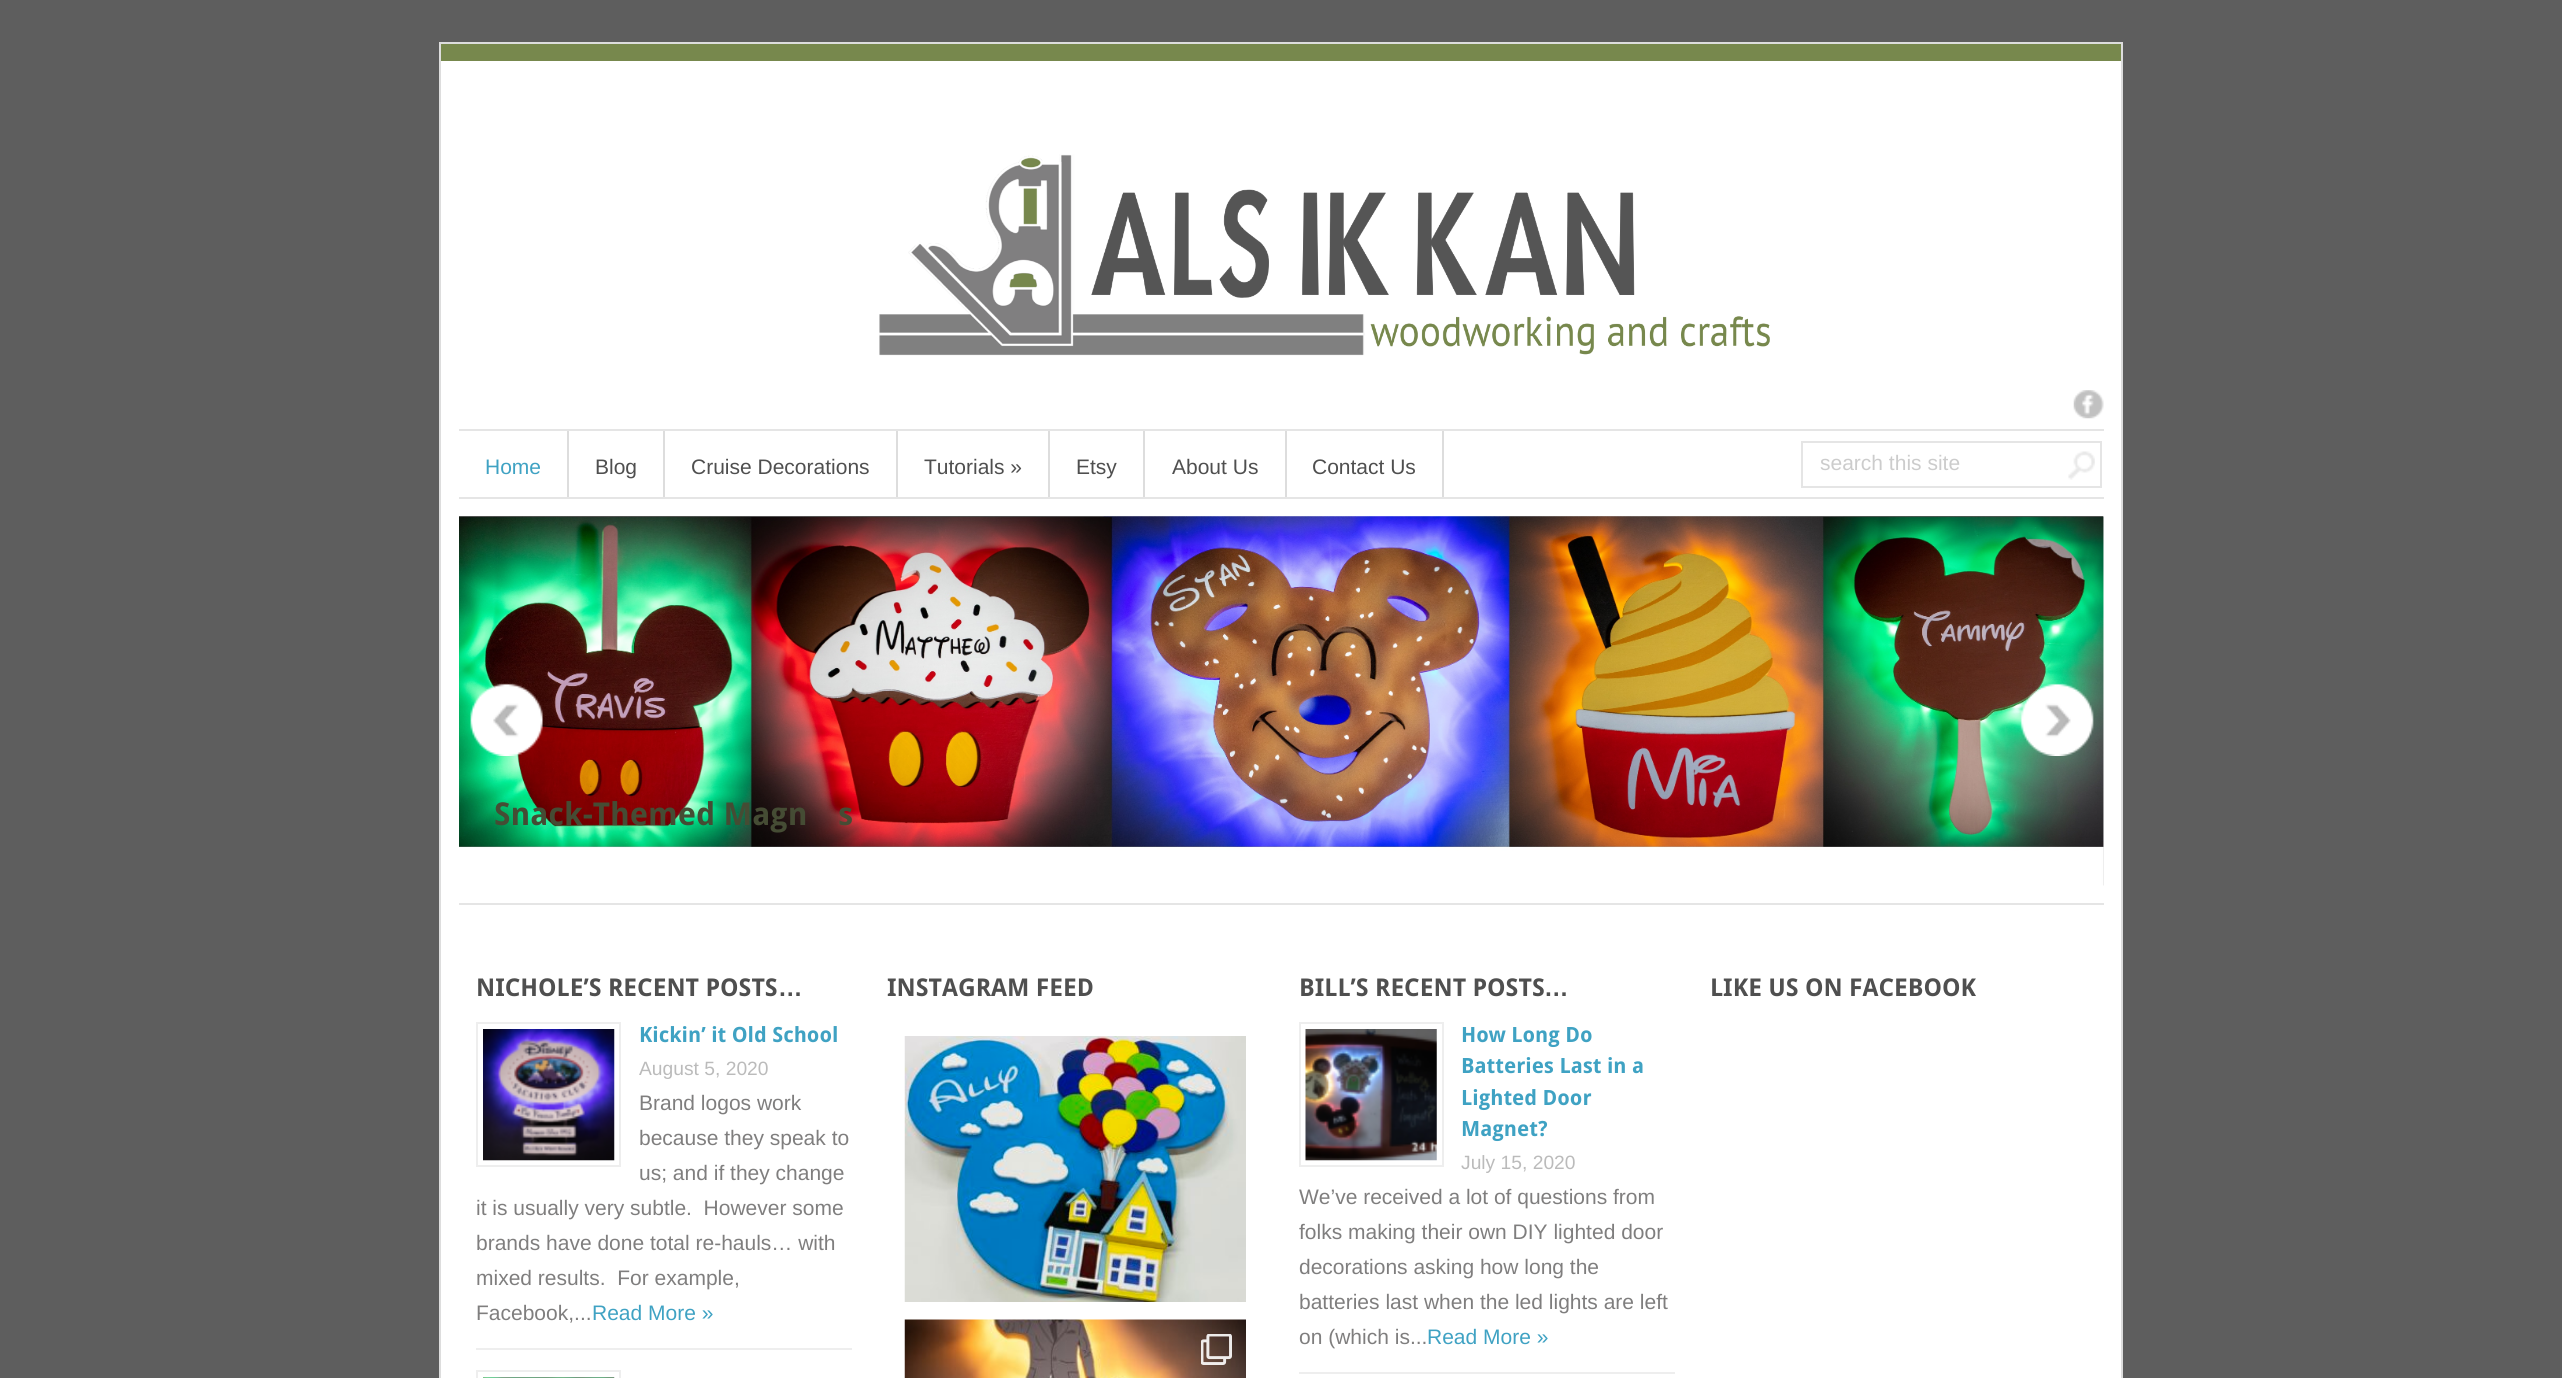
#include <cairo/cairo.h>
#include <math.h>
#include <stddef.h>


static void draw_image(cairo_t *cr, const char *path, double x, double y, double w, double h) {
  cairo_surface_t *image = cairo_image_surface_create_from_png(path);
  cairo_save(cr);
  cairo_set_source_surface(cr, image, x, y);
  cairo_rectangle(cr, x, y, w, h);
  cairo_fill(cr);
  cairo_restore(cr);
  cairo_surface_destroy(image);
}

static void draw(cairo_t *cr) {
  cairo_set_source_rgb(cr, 94 / 255.0, 94 / 255.0, 94 / 255.0);
  cairo_paint(cr);
  cairo_rectangle(cr, 440, 43, 1682, 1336);
  cairo_set_source_rgb(cr, 221 / 255.0, 221 / 255.0, 221 / 255.0);
  cairo_stroke(cr);
  cairo_set_source_rgb(cr, 1, 1, 1);
  cairo_rectangle(cr, 441, 61, 1680, 1317);
  cairo_fill(cr);
  cairo_set_source_rgb(cr, 119 / 255.0, 136 / 255.0, 77 / 255.0);
  cairo_rectangle(cr, 441, 44, 1680, 17);
  cairo_fill(cr);
  cairo_set_source_rgb(cr, 229 / 255.0, 229 / 255.0, 229 / 255.0);
  cairo_rectangle(cr, 459, 429, 1645, 2);
  cairo_fill(cr);
  draw_image(cr, "images/1.png", 879, 154, 891, 202);
  draw_image(cr, "images/2.png", 2073, 390, 31, 29);
  cairo_rectangle(cr, 459, 497, 1645, 2);
  cairo_fill(cr);
  cairo_set_source_rgb(cr, 221 / 255.0, 221 / 255.0, 221 / 255.0);
  cairo_rectangle(cr, 567, 431, 2, 66);
  cairo_fill(cr);
  cairo_rectangle(cr, 663, 431, 2, 66);
  cairo_fill(cr);
  cairo_rectangle(cr, 896, 431, 2, 66);
  cairo_fill(cr);
  cairo_rectangle(cr, 1048, 431, 2, 66);
  cairo_fill(cr);
  cairo_rectangle(cr, 1143, 431, 2, 66);
  cairo_fill(cr);
  cairo_rectangle(cr, 1285, 431, 2, 66);
  cairo_fill(cr);
  cairo_rectangle(cr, 1442, 431, 2, 66);
  cairo_fill(cr);
  cairo_rectangle(cr, 1802, 442, 299, 45);
  cairo_set_source_rgb(cr, 229 / 255.0, 229 / 255.0, 229 / 255.0);
  cairo_stroke(cr);
  draw_image(cr, "images/3.png", 2068, 451, 27, 29);
  draw_image(cr, "images/6.png", 459, 516, 1645, 370);
  draw_image(cr, "images/4.png", 470, 683, 73, 73);
  draw_image(cr, "images/5.png", 2020, 683, 74, 73);
  cairo_rectangle(cr, 459, 903, 1645, 2);
  cairo_fill(cr);
  cairo_set_source_rgb(cr, 238 / 255.0, 238 / 255.0, 238 / 255.0);
  cairo_rectangle(cr, 476, 1348, 376, 2);
  cairo_fill(cr);
  cairo_rectangle(cr, 477, 1023, 143, 143);
  cairo_stroke(cr);
  draw_image(cr, "images/7.png", 483, 1029, 132, 132);
  cairo_rectangle(cr, 477, 1371, 143, 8);
  cairo_stroke(cr);
  draw_image(cr, "images/8.png", 483, 1377, 132, 1);
  draw_image(cr, "images/9.png", 904, 1036, 342, 266);
  draw_image(cr, "images/10.png", 904, 1319, 342, 59);
  draw_image(cr, "images/11.png", 1201, 1334, 31, 31);
  cairo_rectangle(cr, 1299, 1372, 376, 2);
  cairo_fill(cr);
  cairo_rectangle(cr, 1300, 1023, 143, 143);
  cairo_stroke(cr);
  draw_image(cr, "images/12.png", 1305, 1029, 132, 132);
  cairo_select_font_face(cr, "Liberation Sans", CAIRO_FONT_SLANT_NORMAL, CAIRO_FONT_WEIGHT_NORMAL);
  cairo_set_font_size(cr, 21);
  cairo_set_source_rgb(cr, 63 / 255.0, 162 / 255.0, 195 / 255.0);
  cairo_move_to(cr, 485, 474);
  cairo_show_text(cr, "Home");
  cairo_set_source_rgb(cr, 79 / 255.0, 79 / 255.0, 79 / 255.0);
  cairo_move_to(cr, 595, 474);
  cairo_show_text(cr, "Blog");
  cairo_move_to(cr, 691, 474);
  cairo_show_text(cr, "Cruise Decorations");
  cairo_move_to(cr, 924, 474);
  cairo_show_text(cr, "Tutorials »");
  cairo_move_to(cr, 1076, 474);
  cairo_show_text(cr, "Etsy");
  cairo_move_to(cr, 1172, 474);
  cairo_show_text(cr, "About Us");
  cairo_move_to(cr, 1312, 474);
  cairo_show_text(cr, "Contact Us");
  cairo_set_source_rgb(cr, 204 / 255.0, 204 / 255.0, 204 / 255.0);
  cairo_move_to(cr, 1820, 470);
  cairo_show_text(cr, "search this site");
  cairo_select_font_face(cr, "Droid Sans", CAIRO_FONT_SLANT_NORMAL, CAIRO_FONT_WEIGHT_BOLD);
  cairo_set_font_size(cr, 31.5);
  cairo_set_source_rgb(cr, 69 / 255.0, 76 / 255.0, 52 / 255.0);
  cairo_move_to(cr, 494, 825);
  cairo_show_text(cr, "Snack-Themed Magn");
  cairo_move_to(cr, 838, 825);
  cairo_show_text(cr, "s");
  cairo_set_font_size(cr, 24.5);
  cairo_set_source_rgb(cr, 79 / 255.0, 79 / 255.0, 79 / 255.0);
  cairo_move_to(cr, 476, 996);
  cairo_show_text(cr, "NICHOLE’S RECENT POSTS");
  cairo_select_font_face(cr, "Liberation Sans", CAIRO_FONT_SLANT_NORMAL, CAIRO_FONT_WEIGHT_BOLD);
  cairo_move_to(cr, 778, 996);
  cairo_show_text(cr, "…");
  cairo_select_font_face(cr, "Droid Sans", CAIRO_FONT_SLANT_NORMAL, CAIRO_FONT_WEIGHT_BOLD);
  cairo_set_font_size(cr, 21);
  cairo_set_source_rgb(cr, 63 / 255.0, 162 / 255.0, 195 / 255.0);
  cairo_move_to(cr, 639, 1042);
  cairo_show_text(cr, "Kickin’ it Old School");
  cairo_select_font_face(cr, "Liberation Sans", CAIRO_FONT_SLANT_NORMAL, CAIRO_FONT_WEIGHT_NORMAL);
  cairo_set_font_size(cr, 19.25);
  cairo_set_source_rgb(cr, 187 / 255.0, 187 / 255.0, 187 / 255.0);
  cairo_move_to(cr, 639, 1075);
  cairo_show_text(cr, "August 5, 2020");
  cairo_set_font_size(cr, 21);
  cairo_set_source_rgb(cr, 127 / 255.0, 126 / 255.0, 126 / 255.0);
  cairo_move_to(cr, 639, 1110);
  cairo_show_text(cr, "Brand logos work");
  cairo_move_to(cr, 639, 1145);
  cairo_show_text(cr, "because they speak to");
  cairo_move_to(cr, 639, 1180);
  cairo_show_text(cr, "us; and if they change");
  cairo_move_to(cr, 476, 1215);
  cairo_show_text(cr, "it is usually very subtle.  However some");
  cairo_move_to(cr, 476, 1250);
  cairo_show_text(cr, "brands have done total re-hauls… with");
  cairo_move_to(cr, 476, 1285);
  cairo_show_text(cr, "mixed results.  For example,");
  cairo_move_to(cr, 476, 1320);
  cairo_show_text(cr, "Facebook,...");
  cairo_set_source_rgb(cr, 63 / 255.0, 162 / 255.0, 195 / 255.0);
  cairo_move_to(cr, 592, 1320);
  cairo_show_text(cr, "Read More »");
  cairo_select_font_face(cr, "Droid Sans", CAIRO_FONT_SLANT_NORMAL, CAIRO_FONT_WEIGHT_BOLD);
  cairo_set_font_size(cr, 24.5);
  cairo_set_source_rgb(cr, 79 / 255.0, 79 / 255.0, 79 / 255.0);
  cairo_move_to(cr, 887, 996);
  cairo_show_text(cr, "INSTAGRAM FEED");
  cairo_move_to(cr, 1299, 996);
  cairo_show_text(cr, "BILL’S RECENT POSTS");
  cairo_select_font_face(cr, "Liberation Sans", CAIRO_FONT_SLANT_NORMAL, CAIRO_FONT_WEIGHT_BOLD);
  cairo_move_to(cr, 1544, 996);
  cairo_show_text(cr, "…");
  cairo_select_font_face(cr, "Droid Sans", CAIRO_FONT_SLANT_NORMAL, CAIRO_FONT_WEIGHT_BOLD);
  cairo_set_font_size(cr, 21);
  cairo_set_source_rgb(cr, 63 / 255.0, 162 / 255.0, 195 / 255.0);
  cairo_move_to(cr, 1461, 1042);
  cairo_show_text(cr, "How Long Do");
  cairo_move_to(cr, 1461, 1073);
  cairo_show_text(cr, "Batteries Last in a");
  cairo_move_to(cr, 1461, 1105);
  cairo_show_text(cr, "Lighted Door");
  cairo_move_to(cr, 1461, 1136);
  cairo_show_text(cr, "Magnet?");
  cairo_select_font_face(cr, "Liberation Sans", CAIRO_FONT_SLANT_NORMAL, CAIRO_FONT_WEIGHT_NORMAL);
  cairo_set_font_size(cr, 19.25);
  cairo_set_source_rgb(cr, 187 / 255.0, 187 / 255.0, 187 / 255.0);
  cairo_move_to(cr, 1461, 1169);
  cairo_show_text(cr, "July 15, 2020");
  cairo_set_font_size(cr, 21);
  cairo_set_source_rgb(cr, 127 / 255.0, 126 / 255.0, 126 / 255.0);
  cairo_move_to(cr, 1299, 1204);
  cairo_show_text(cr, "We’ve received a lot of questions from");
  cairo_move_to(cr, 1299, 1239);
  cairo_show_text(cr, "folks making their own DIY lighted door");
  cairo_move_to(cr, 1299, 1274);
  cairo_show_text(cr, "decorations asking how long the");
  cairo_move_to(cr, 1299, 1309);
  cairo_show_text(cr, "batteries last when the led lights are left");
  cairo_move_to(cr, 1299, 1344);
  cairo_show_text(cr, "on (which is...");
  cairo_set_source_rgb(cr, 63 / 255.0, 162 / 255.0, 195 / 255.0);
  cairo_move_to(cr, 1427, 1344);
  cairo_show_text(cr, "Read More »");
  cairo_select_font_face(cr, "Droid Sans", CAIRO_FONT_SLANT_NORMAL, CAIRO_FONT_WEIGHT_BOLD);
  cairo_set_font_size(cr, 24.5);
  cairo_set_source_rgb(cr, 79 / 255.0, 79 / 255.0, 79 / 255.0);
  cairo_move_to(cr, 1710, 996);
  cairo_show_text(cr, "LIKE US ON FACEBOOK");
}

int main(void) {
  cairo_surface_t *surface = cairo_image_surface_create(CAIRO_FORMAT_RGB24, 2562, 1378);
  cairo_t *cr = cairo_create(surface);
  cairo_font_options_t *options = cairo_font_options_create();
  cairo_font_options_set_hint_metrics(options, CAIRO_HINT_METRICS_OFF);
  cairo_font_options_set_hint_style(options, CAIRO_HINT_STYLE_NONE);
  cairo_set_font_options(cr, options);
  cairo_set_miter_limit(cr, 4);
  draw(cr);
  cairo_surface_write_to_png(surface, "out.png");
  cairo_font_options_destroy(options);
  cairo_destroy(cr);
  cairo_surface_destroy(surface);
  return 0;
}
